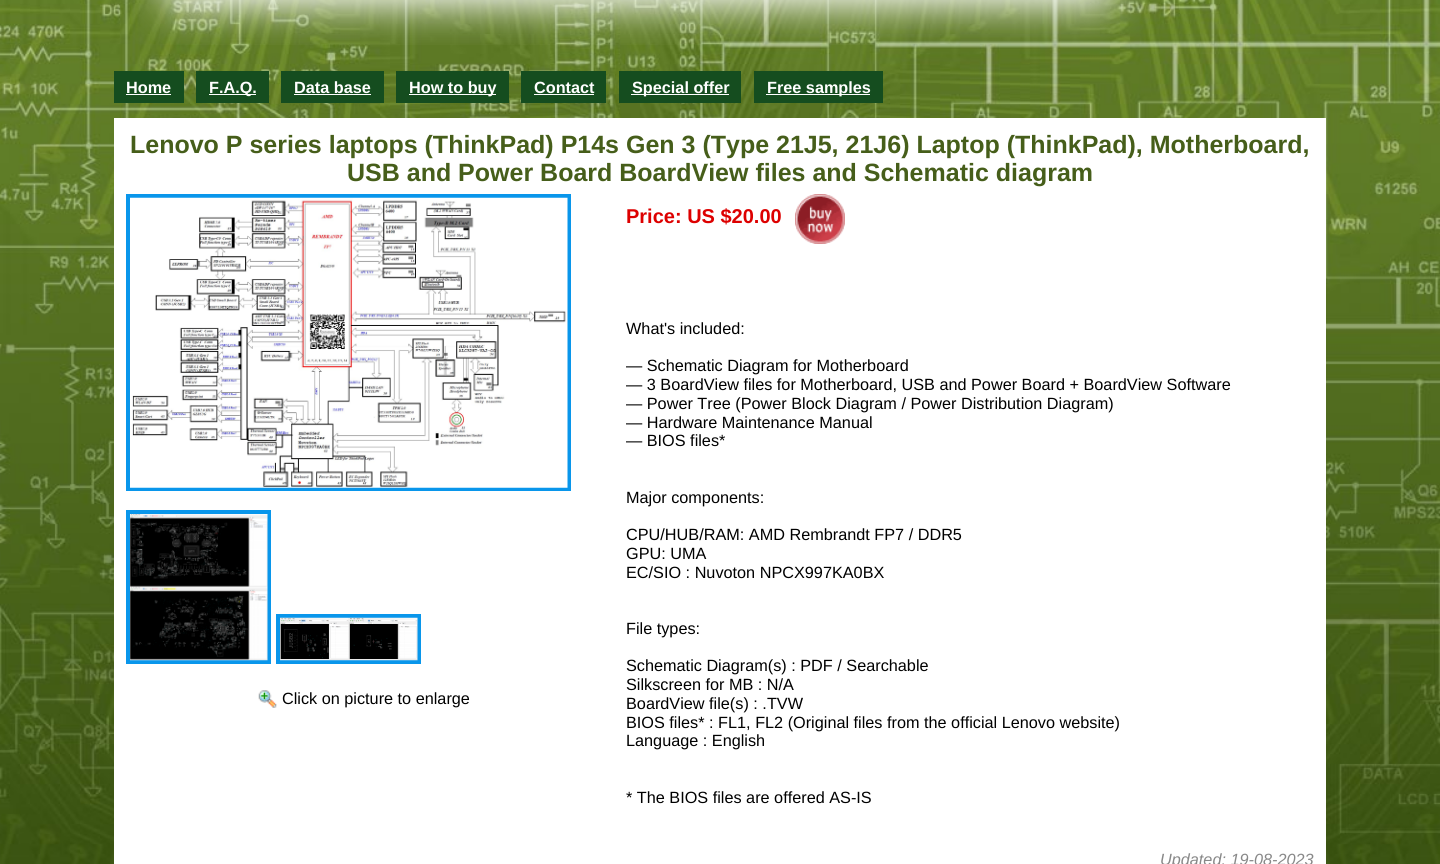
#include <cairo/cairo.h>
#include <math.h>
#include <stddef.h>


static void draw_image(cairo_t *cr, const char *path, double x, double y, double w, double h) {
  cairo_surface_t *image = cairo_image_surface_create_from_png(path);
  cairo_save(cr);
  cairo_set_source_surface(cr, image, x, y);
  cairo_rectangle(cr, x, y, w, h);
  cairo_fill(cr);
  cairo_restore(cr);
  cairo_surface_destroy(image);
}

static void draw(cairo_t *cr) {
  cairo_set_source_rgb(cr, 1, 1, 1);
  cairo_paint(cr);
  draw_image(cr, "images/1.png", 0, 0, 1440, 864);
  draw_image(cr, "images/2.png", 131, 0, 1019, 45);
  cairo_set_source_rgb(cr, 21 / 255.0, 77 / 255.0, 31 / 255.0);
  cairo_rectangle(cr, 114, 71, 70, 32);
  cairo_fill(cr);
  cairo_set_source_rgb(cr, 1, 1, 1);
  cairo_rectangle(cr, 126, 94, 45, 1);
  cairo_fill(cr);
  cairo_set_source_rgb(cr, 21 / 255.0, 77 / 255.0, 31 / 255.0);
  cairo_rectangle(cr, 196, 71, 73, 32);
  cairo_fill(cr);
  cairo_set_source_rgb(cr, 1, 1, 1);
  cairo_rectangle(cr, 209, 94, 47, 1);
  cairo_fill(cr);
  cairo_set_source_rgb(cr, 21 / 255.0, 77 / 255.0, 31 / 255.0);
  cairo_rectangle(cr, 281, 71, 103, 32);
  cairo_fill(cr);
  cairo_set_source_rgb(cr, 1, 1, 1);
  cairo_rectangle(cr, 294, 94, 77, 1);
  cairo_fill(cr);
  cairo_set_source_rgb(cr, 21 / 255.0, 77 / 255.0, 31 / 255.0);
  cairo_rectangle(cr, 396, 71, 113, 32);
  cairo_fill(cr);
  cairo_set_source_rgb(cr, 1, 1, 1);
  cairo_rectangle(cr, 409, 94, 87, 1);
  cairo_fill(cr);
  cairo_set_source_rgb(cr, 21 / 255.0, 77 / 255.0, 31 / 255.0);
  cairo_rectangle(cr, 521, 71, 85, 32);
  cairo_fill(cr);
  cairo_set_source_rgb(cr, 1, 1, 1);
  cairo_rectangle(cr, 534, 94, 60, 1);
  cairo_fill(cr);
  cairo_set_source_rgb(cr, 21 / 255.0, 77 / 255.0, 31 / 255.0);
  cairo_rectangle(cr, 619, 71, 122, 32);
  cairo_fill(cr);
  cairo_set_source_rgb(cr, 1, 1, 1);
  cairo_rectangle(cr, 631, 94, 98, 1);
  cairo_fill(cr);
  cairo_set_source_rgb(cr, 21 / 255.0, 77 / 255.0, 31 / 255.0);
  cairo_rectangle(cr, 754, 71, 129, 32);
  cairo_fill(cr);
  cairo_set_source_rgb(cr, 1, 1, 1);
  cairo_rectangle(cr, 766, 94, 104, 1);
  cairo_fill(cr);
  cairo_rectangle(cr, 114, 118, 1212, 746);
  cairo_fill(cr);
  cairo_rectangle(cr, 128, 196, 441, 293);
  cairo_set_source_rgb(cr, 9 / 255.0, 150 / 255.0, 235 / 255.0);
  cairo_set_line_width(cr, 4);
  cairo_stroke(cr);
  draw_image(cr, "images/3.png", 130, 197, 438, 291);
  cairo_rectangle(cr, 128, 512, 141, 150);
  cairo_stroke(cr);
  draw_image(cr, "images/4.png", 130, 514, 138, 147);
  cairo_rectangle(cr, 278, 616, 141, 46);
  cairo_stroke(cr);
  draw_image(cr, "images/5.png", 280, 617, 138, 44);
  draw_image(cr, "images/6.png", 258, 690, 19, 18);
  draw_image(cr, "images/7.png", 795, 194, 50, 50);
  cairo_select_font_face(cr, "Liberation Sans", CAIRO_FONT_SLANT_NORMAL, CAIRO_FONT_WEIGHT_BOLD);
  cairo_set_font_size(cr, 16.25);
  cairo_set_source_rgb(cr, 1, 1, 1);
  cairo_move_to(cr, 126, 93);
  cairo_show_text(cr, "Home");
  cairo_move_to(cr, 209, 93);
  cairo_show_text(cr, "F.A.Q.");
  cairo_move_to(cr, 294, 93);
  cairo_show_text(cr, "Data base");
  cairo_move_to(cr, 409, 93);
  cairo_show_text(cr, "How to buy");
  cairo_move_to(cr, 534, 93);
  cairo_show_text(cr, "Contact");
  cairo_move_to(cr, 632, 93);
  cairo_show_text(cr, "Special offer");
  cairo_move_to(cr, 767, 93);
  cairo_show_text(cr, "Free samples");
  cairo_set_font_size(cr, 25);
  cairo_set_source_rgb(cr, 70 / 255.0, 94 / 255.0, 26 / 255.0);
  cairo_move_to(cr, 130, 153);
  cairo_show_text(cr, "Lenovo P series laptops (ThinkPad) P14s Gen 3 (Type 21J5, 21J6) Laptop (ThinkPad), Motherboard,");
  cairo_move_to(cr, 347, 181);
  cairo_show_text(cr, "USB and Power Board BoardView files and Schematic diagram");
  cairo_select_font_face(cr, "Liberation Sans", CAIRO_FONT_SLANT_NORMAL, CAIRO_FONT_WEIGHT_NORMAL);
  cairo_set_font_size(cr, 16.25);
  cairo_set_source_rgb(cr, 0, 0, 0);
  cairo_move_to(cr, 282, 704);
  cairo_show_text(cr, "Click on picture to enlarge");
  cairo_select_font_face(cr, "Liberation Sans", CAIRO_FONT_SLANT_NORMAL, CAIRO_FONT_WEIGHT_BOLD);
  cairo_set_font_size(cr, 20);
  cairo_set_source_rgb(cr, 221 / 255.0, 0, 0);
  cairo_move_to(cr, 626, 223);
  cairo_show_text(cr, "Price: US $20.00");
  cairo_select_font_face(cr, "Liberation Sans", CAIRO_FONT_SLANT_NORMAL, CAIRO_FONT_WEIGHT_NORMAL);
  cairo_set_font_size(cr, 16.25);
  cairo_set_source_rgb(cr, 0, 0, 0);
  cairo_move_to(cr, 626, 334);
  cairo_show_text(cr, "What's included:");
  cairo_move_to(cr, 626, 371);
  cairo_show_text(cr, "— Schematic Diagram for Motherboard");
  cairo_move_to(cr, 626, 390);
  cairo_show_text(cr, "— 3 BoardView files for Motherboard, USB and Power Board + BoardView Software");
  cairo_move_to(cr, 626, 409);
  cairo_show_text(cr, "— Power Tree (Power Block Diagram / Power Distribution Diagram)");
  cairo_move_to(cr, 626, 428);
  cairo_show_text(cr, "— Hardware Maintenance Manual");
  cairo_move_to(cr, 626, 446);
  cairo_show_text(cr, "— BIOS files*");
  cairo_move_to(cr, 626, 503);
  cairo_show_text(cr, "Major components:");
  cairo_move_to(cr, 626, 540);
  cairo_show_text(cr, "CPU/HUB/RAM: AMD Rembrandt FP7 / DDR5");
  cairo_move_to(cr, 626, 559);
  cairo_show_text(cr, "GPU: UMA");
  cairo_move_to(cr, 626, 578);
  cairo_show_text(cr, "EC/SIO : Nuvoton NPCX997KA0BX");
  cairo_move_to(cr, 626, 634);
  cairo_show_text(cr, "File types:");
  cairo_move_to(cr, 626, 671);
  cairo_show_text(cr, "Schematic Diagram(s) : PDF / Searchable");
  cairo_move_to(cr, 626, 690);
  cairo_show_text(cr, "Silkscreen for MB : N/A");
  cairo_move_to(cr, 626, 709);
  cairo_show_text(cr, "BoardView file(s) : .TVW");
  cairo_move_to(cr, 626, 728);
  cairo_show_text(cr, "BIOS files* : FL1, FL2 (Original files from the official Lenovo website)");
  cairo_move_to(cr, 626, 746);
  cairo_show_text(cr, "Language : English");
  cairo_move_to(cr, 626, 803);
  cairo_show_text(cr, "* The BIOS files are offered AS-IS");
  cairo_select_font_face(cr, "Liberation Sans", CAIRO_FONT_SLANT_ITALIC, CAIRO_FONT_WEIGHT_NORMAL);
  cairo_set_source_rgb(cr, 136 / 255.0, 136 / 255.0, 136 / 255.0);
  cairo_move_to(cr, 1160, 865);
  cairo_show_text(cr, "Updated: 19-08-2023");
}

int main(void) {
  cairo_surface_t *surface = cairo_image_surface_create(CAIRO_FORMAT_RGB24, 1440, 864);
  cairo_t *cr = cairo_create(surface);
  cairo_font_options_t *options = cairo_font_options_create();
  cairo_font_options_set_hint_metrics(options, CAIRO_HINT_METRICS_OFF);
  cairo_font_options_set_hint_style(options, CAIRO_HINT_STYLE_NONE);
  cairo_set_font_options(cr, options);
  cairo_set_miter_limit(cr, 4);
  draw(cr);
  cairo_surface_write_to_png(surface, "out.png");
  cairo_font_options_destroy(options);
  cairo_destroy(cr);
  cairo_surface_destroy(surface);
  return 0;
}
